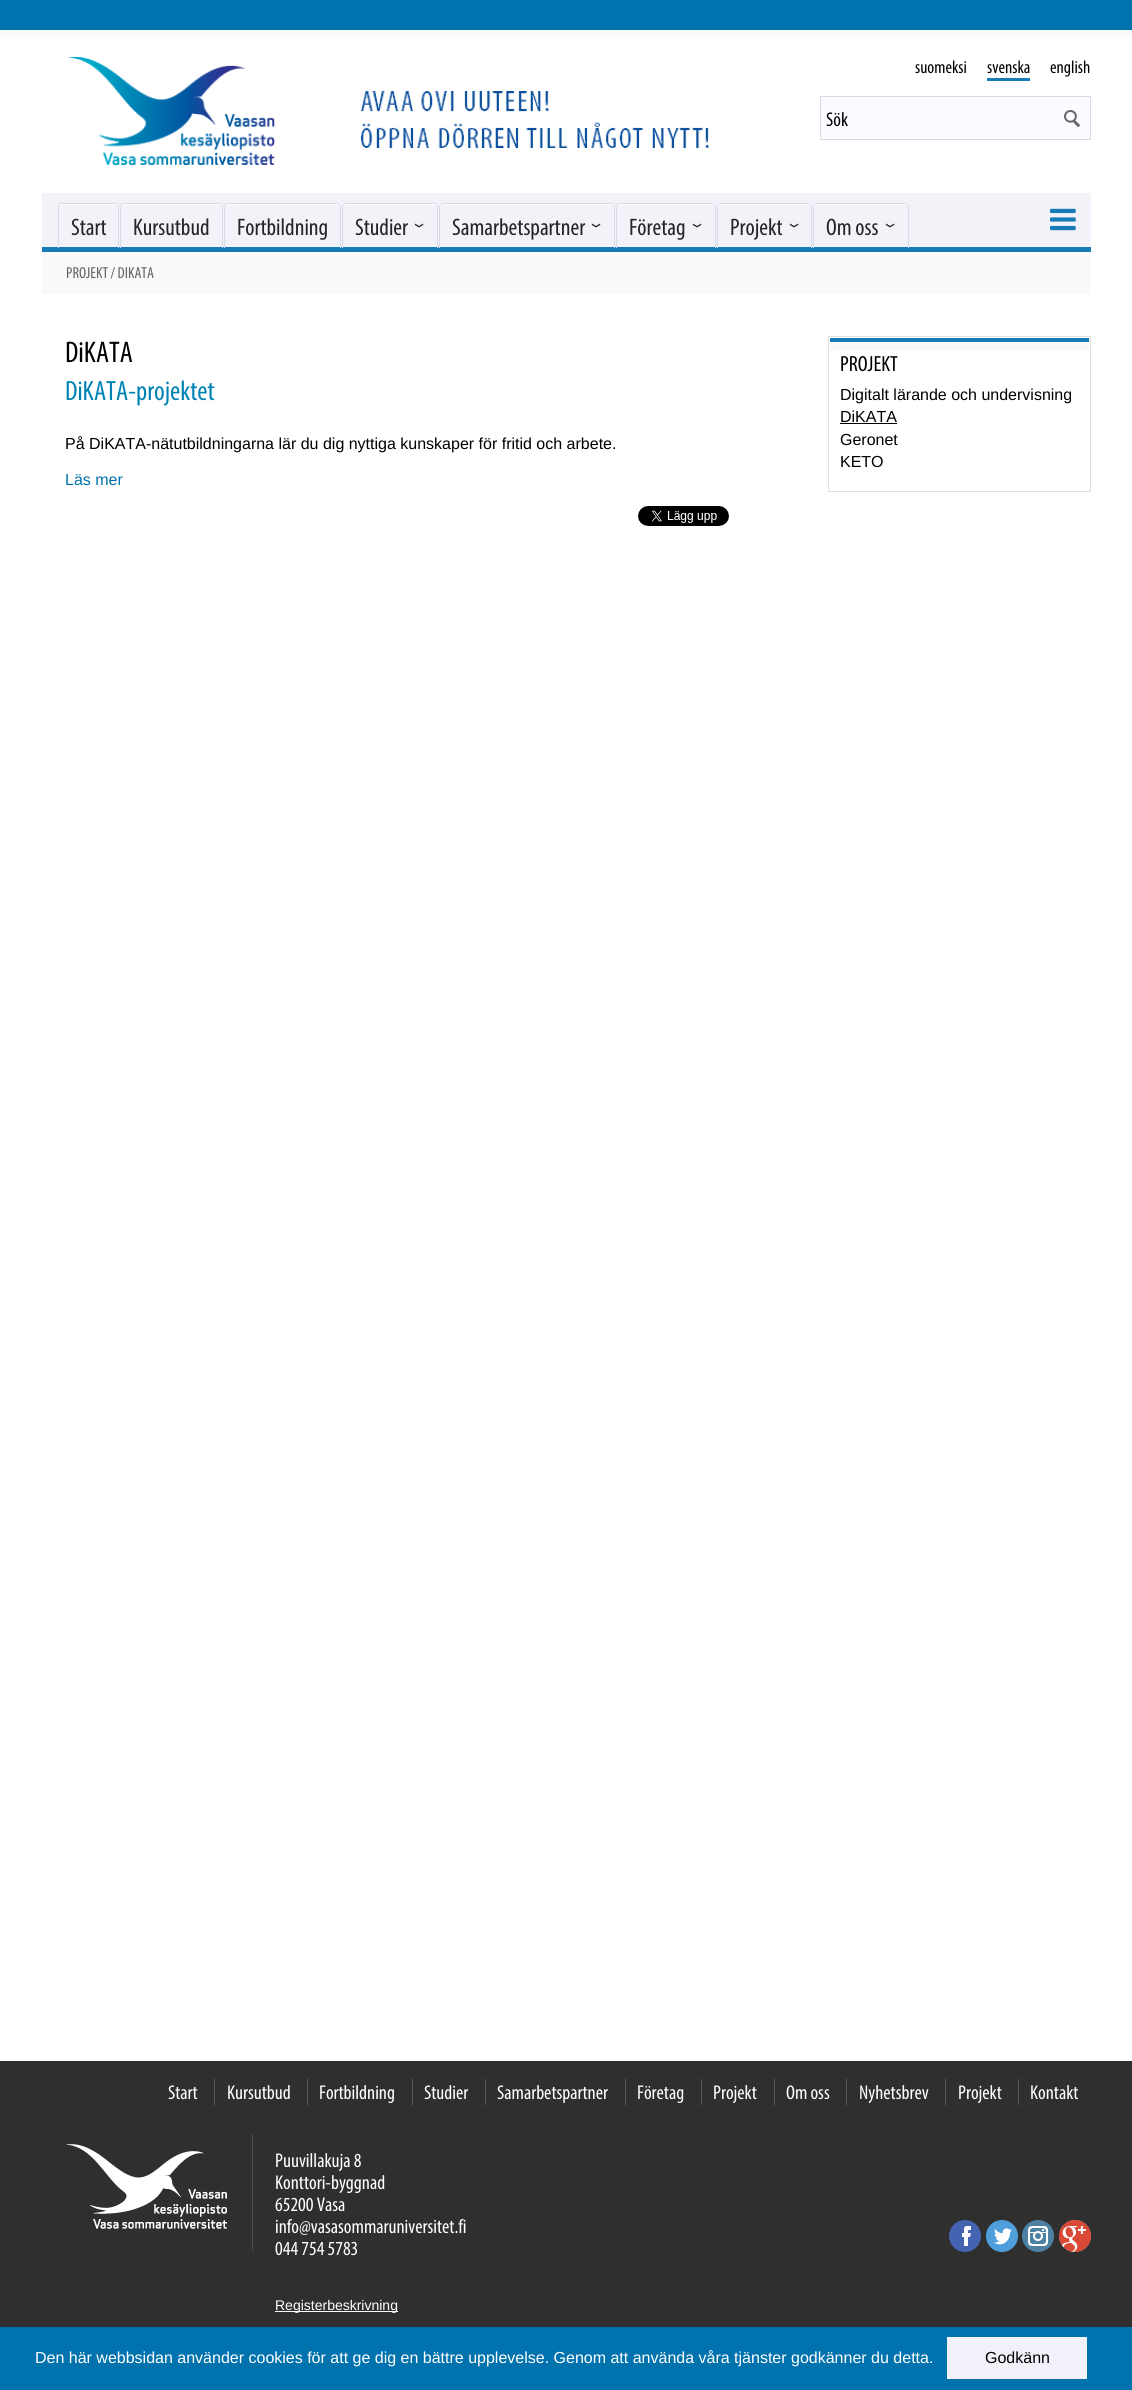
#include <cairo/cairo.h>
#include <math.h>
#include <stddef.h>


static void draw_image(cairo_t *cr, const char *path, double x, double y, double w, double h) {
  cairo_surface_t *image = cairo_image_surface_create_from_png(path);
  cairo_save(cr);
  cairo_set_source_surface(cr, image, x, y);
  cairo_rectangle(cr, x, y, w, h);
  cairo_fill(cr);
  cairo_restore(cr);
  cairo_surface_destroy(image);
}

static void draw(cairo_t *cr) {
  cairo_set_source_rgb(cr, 1, 1, 1);
  cairo_paint(cr);
  cairo_set_source_rgb(cr, 0, 114 / 255.0, 173 / 255.0);
  cairo_rectangle(cr, 0, 0, 1132, 30);
  cairo_fill(cr);
  draw_image(cr, "images/1.png", 0, 30, 1132, 8);
  draw_image(cr, "images/2.png", 69, 56, 206, 109);
  draw_image(cr, "images/3.png", 361, 91, 348, 57);
  cairo_set_source_rgb(cr, 23 / 255.0, 123 / 255.0, 184 / 255.0);
  cairo_rectangle(cr, 987, 78, 43, 3);
  cairo_fill(cr);
  cairo_set_source_rgb(cr, 252 / 255.0, 251 / 255.0, 1);
  cairo_rectangle(cr, 820.5, 96.5, 270, 43);
  cairo_fill_preserve(cr);
  cairo_set_source_rgb(cr, 219 / 255.0, 219 / 255.0, 231 / 255.0);
  cairo_set_line_width(cr, 1);
  cairo_stroke(cr);
  draw_image(cr, "images/4.png", 1064, 110, 16, 17);
  cairo_set_source_rgb(cr, 242 / 255.0, 242 / 255.0, 249 / 255.0);
  cairo_rectangle(cr, 42, 193, 1049, 54);
  cairo_fill(cr);
  cairo_set_source_rgb(cr, 23 / 255.0, 123 / 255.0, 184 / 255.0);
  cairo_rectangle(cr, 42, 247, 1049, 5);
  cairo_fill(cr);
  cairo_set_source_rgb(cr, 1, 1, 1);
  cairo_new_path(cr);
  cairo_move_to(cr, 62, 205);
  cairo_line_to(cr, 115, 205);
  cairo_curve_to(cr, 117, 205, 118, 206, 118, 208);
  cairo_curve_to(cr, 118, 202, 111, 204, 106, 204);
  cairo_line_to(cr, 71, 204);
  cairo_curve_to(cr, 66, 204, 59, 202, 59, 208);
  cairo_curve_to(cr, 59, 206, 60, 205, 62, 205);
  cairo_close_path(cr);
  cairo_fill(cr);
  cairo_set_source_rgb(cr, 218 / 255.0, 218 / 255.0, 233 / 255.0);
  cairo_set_fill_rule(cr, CAIRO_FILL_RULE_EVEN_ODD);
  cairo_new_path(cr);
  cairo_move_to(cr, 62, 203);
  cairo_line_to(cr, 115, 203);
  cairo_curve_to(cr, 117, 203, 119, 205, 119, 207);
  cairo_line_to(cr, 119, 248);
  cairo_line_to(cr, 58, 248);
  cairo_line_to(cr, 58, 207);
  cairo_curve_to(cr, 58, 205, 60, 203, 62, 203);
  cairo_close_path(cr);
  cairo_move_to(cr, 62, 204);
  cairo_line_to(cr, 115, 204);
  cairo_curve_to(cr, 117, 204, 118, 205, 118, 207);
  cairo_line_to(cr, 118, 248);
  cairo_line_to(cr, 59, 248);
  cairo_line_to(cr, 59, 207);
  cairo_curve_to(cr, 59, 205, 60, 204, 62, 204);
  cairo_close_path(cr);
  cairo_fill(cr);
  cairo_set_source_rgb(cr, 1, 1, 1);
  cairo_set_fill_rule(cr, CAIRO_FILL_RULE_WINDING);
  cairo_new_path(cr);
  cairo_move_to(cr, 124, 205);
  cairo_line_to(cr, 219, 205);
  cairo_curve_to(cr, 221, 205, 222, 206, 222, 208);
  cairo_curve_to(cr, 222, 200, 206, 204, 203, 204);
  cairo_line_to(cr, 140, 204);
  cairo_curve_to(cr, 137, 204, 121, 200, 121, 208);
  cairo_curve_to(cr, 121, 206, 122, 205, 124, 205);
  cairo_close_path(cr);
  cairo_fill(cr);
  cairo_set_source_rgb(cr, 218 / 255.0, 218 / 255.0, 233 / 255.0);
  cairo_set_fill_rule(cr, CAIRO_FILL_RULE_EVEN_ODD);
  cairo_new_path(cr);
  cairo_move_to(cr, 124, 203);
  cairo_line_to(cr, 219, 203);
  cairo_curve_to(cr, 221, 203, 223, 205, 223, 207);
  cairo_line_to(cr, 223, 248);
  cairo_line_to(cr, 120, 248);
  cairo_line_to(cr, 120, 207);
  cairo_curve_to(cr, 120, 205, 122, 203, 124, 203);
  cairo_close_path(cr);
  cairo_move_to(cr, 124, 204);
  cairo_line_to(cr, 219, 204);
  cairo_curve_to(cr, 221, 204, 222, 205, 222, 207);
  cairo_line_to(cr, 222, 248);
  cairo_line_to(cr, 121, 248);
  cairo_line_to(cr, 121, 207);
  cairo_curve_to(cr, 121, 205, 122, 204, 124, 204);
  cairo_close_path(cr);
  cairo_fill(cr);
  cairo_set_source_rgb(cr, 1, 1, 1);
  cairo_set_fill_rule(cr, CAIRO_FILL_RULE_WINDING);
  cairo_new_path(cr);
  cairo_move_to(cr, 228, 205);
  cairo_line_to(cr, 337, 205);
  cairo_curve_to(cr, 339, 205, 340, 206, 340, 208);
  cairo_curve_to(cr, 340, 206, 339, 204, 337, 204);
  cairo_line_to(cr, 246, 204);
  cairo_curve_to(cr, 245, 204, 225, 199, 225, 208);
  cairo_curve_to(cr, 225, 206, 226, 205, 228, 205);
  cairo_close_path(cr);
  cairo_fill(cr);
  cairo_set_source_rgb(cr, 218 / 255.0, 218 / 255.0, 233 / 255.0);
  cairo_set_fill_rule(cr, CAIRO_FILL_RULE_EVEN_ODD);
  cairo_new_path(cr);
  cairo_move_to(cr, 228, 203);
  cairo_line_to(cr, 337, 203);
  cairo_curve_to(cr, 339, 203, 341, 205, 341, 207);
  cairo_line_to(cr, 341, 248);
  cairo_line_to(cr, 224, 248);
  cairo_line_to(cr, 224, 207);
  cairo_curve_to(cr, 224, 205, 226, 203, 228, 203);
  cairo_close_path(cr);
  cairo_move_to(cr, 228, 204);
  cairo_line_to(cr, 337, 204);
  cairo_curve_to(cr, 339, 204, 340, 205, 340, 207);
  cairo_line_to(cr, 340, 248);
  cairo_line_to(cr, 225, 248);
  cairo_line_to(cr, 225, 207);
  cairo_curve_to(cr, 225, 205, 226, 204, 228, 204);
  cairo_close_path(cr);
  cairo_fill(cr);
  cairo_set_source_rgb(cr, 1, 1, 1);
  cairo_set_fill_rule(cr, CAIRO_FILL_RULE_WINDING);
  cairo_new_path(cr);
  cairo_move_to(cr, 346, 205);
  cairo_line_to(cr, 434, 205);
  cairo_curve_to(cr, 436, 205, 437, 206, 437, 208);
  cairo_curve_to(cr, 437, 200, 423, 204, 419, 204);
  cairo_line_to(cr, 361, 204);
  cairo_curve_to(cr, 357, 204, 343, 200, 343, 208);
  cairo_curve_to(cr, 343, 206, 344, 205, 346, 205);
  cairo_close_path(cr);
  cairo_fill(cr);
  cairo_set_source_rgb(cr, 218 / 255.0, 218 / 255.0, 233 / 255.0);
  cairo_set_fill_rule(cr, CAIRO_FILL_RULE_EVEN_ODD);
  cairo_new_path(cr);
  cairo_move_to(cr, 346, 203);
  cairo_line_to(cr, 434, 203);
  cairo_curve_to(cr, 436, 203, 438, 205, 438, 207);
  cairo_line_to(cr, 438, 248);
  cairo_line_to(cr, 342, 248);
  cairo_line_to(cr, 342, 207);
  cairo_curve_to(cr, 342, 205, 344, 203, 346, 203);
  cairo_close_path(cr);
  cairo_move_to(cr, 346, 204);
  cairo_line_to(cr, 434, 204);
  cairo_curve_to(cr, 436, 204, 437, 205, 437, 207);
  cairo_line_to(cr, 437, 248);
  cairo_line_to(cr, 343, 248);
  cairo_line_to(cr, 343, 207);
  cairo_curve_to(cr, 343, 205, 344, 204, 346, 204);
  cairo_close_path(cr);
  cairo_fill(cr);
  cairo_set_source_rgb(cr, 1, 1, 1);
  cairo_set_fill_rule(cr, CAIRO_FILL_RULE_WINDING);
  cairo_new_path(cr);
  cairo_move_to(cr, 443, 205);
  cairo_line_to(cr, 611, 205);
  cairo_curve_to(cr, 613, 205, 614, 206, 614, 208);
  cairo_line_to(cr, 614, 207);
  cairo_curve_to(cr, 614, 205, 613, 204, 611, 204);
  cairo_line_to(cr, 443, 204);
  cairo_curve_to(cr, 441, 204, 440, 205, 440, 207);
  cairo_line_to(cr, 440, 208);
  cairo_curve_to(cr, 440, 206, 441, 205, 443, 205);
  cairo_close_path(cr);
  cairo_fill(cr);
  cairo_set_source_rgb(cr, 218 / 255.0, 218 / 255.0, 233 / 255.0);
  cairo_set_fill_rule(cr, CAIRO_FILL_RULE_EVEN_ODD);
  cairo_new_path(cr);
  cairo_move_to(cr, 443, 203);
  cairo_line_to(cr, 611, 203);
  cairo_curve_to(cr, 613, 203, 615, 205, 615, 207);
  cairo_line_to(cr, 615, 248);
  cairo_line_to(cr, 439, 248);
  cairo_line_to(cr, 439, 207);
  cairo_curve_to(cr, 439, 205, 441, 203, 443, 203);
  cairo_close_path(cr);
  cairo_move_to(cr, 443, 204);
  cairo_line_to(cr, 611, 204);
  cairo_curve_to(cr, 613, 204, 614, 205, 614, 207);
  cairo_line_to(cr, 614, 248);
  cairo_line_to(cr, 440, 248);
  cairo_line_to(cr, 440, 207);
  cairo_curve_to(cr, 440, 205, 441, 204, 443, 204);
  cairo_close_path(cr);
  cairo_fill(cr);
  cairo_set_source_rgb(cr, 1, 1, 1);
  cairo_set_fill_rule(cr, CAIRO_FILL_RULE_WINDING);
  cairo_new_path(cr);
  cairo_move_to(cr, 620, 205);
  cairo_line_to(cr, 712, 205);
  cairo_curve_to(cr, 714, 205, 715, 206, 715, 208);
  cairo_curve_to(cr, 715, 200, 700, 204, 697, 204);
  cairo_line_to(cr, 635, 204);
  cairo_curve_to(cr, 632, 204, 617, 200, 617, 208);
  cairo_curve_to(cr, 617, 206, 618, 205, 620, 205);
  cairo_close_path(cr);
  cairo_fill(cr);
  cairo_set_source_rgb(cr, 218 / 255.0, 218 / 255.0, 233 / 255.0);
  cairo_set_fill_rule(cr, CAIRO_FILL_RULE_EVEN_ODD);
  cairo_new_path(cr);
  cairo_move_to(cr, 620, 203);
  cairo_line_to(cr, 712, 203);
  cairo_curve_to(cr, 714, 203, 716, 205, 716, 207);
  cairo_line_to(cr, 716, 248);
  cairo_line_to(cr, 616, 248);
  cairo_line_to(cr, 616, 207);
  cairo_curve_to(cr, 616, 205, 618, 203, 620, 203);
  cairo_close_path(cr);
  cairo_move_to(cr, 620, 204);
  cairo_line_to(cr, 712, 204);
  cairo_curve_to(cr, 714, 204, 715, 205, 715, 207);
  cairo_line_to(cr, 715, 248);
  cairo_line_to(cr, 617, 248);
  cairo_line_to(cr, 617, 207);
  cairo_curve_to(cr, 617, 205, 618, 204, 620, 204);
  cairo_close_path(cr);
  cairo_fill(cr);
  cairo_set_source_rgb(cr, 1, 1, 1);
  cairo_set_fill_rule(cr, CAIRO_FILL_RULE_WINDING);
  cairo_new_path(cr);
  cairo_move_to(cr, 721, 205);
  cairo_line_to(cr, 808, 205);
  cairo_curve_to(cr, 810, 205, 811, 206, 811, 208);
  cairo_curve_to(cr, 811, 200, 797, 204, 794, 204);
  cairo_line_to(cr, 736, 204);
  cairo_curve_to(cr, 732, 204, 718, 200, 718, 208);
  cairo_curve_to(cr, 718, 206, 719, 205, 721, 205);
  cairo_close_path(cr);
  cairo_fill(cr);
  cairo_set_source_rgb(cr, 218 / 255.0, 218 / 255.0, 233 / 255.0);
  cairo_set_fill_rule(cr, CAIRO_FILL_RULE_EVEN_ODD);
  cairo_new_path(cr);
  cairo_move_to(cr, 721, 203);
  cairo_line_to(cr, 808, 203);
  cairo_curve_to(cr, 810, 203, 812, 205, 812, 207);
  cairo_line_to(cr, 812, 248);
  cairo_line_to(cr, 717, 248);
  cairo_line_to(cr, 717, 207);
  cairo_curve_to(cr, 717, 205, 719, 203, 721, 203);
  cairo_close_path(cr);
  cairo_move_to(cr, 721, 204);
  cairo_line_to(cr, 808, 204);
  cairo_curve_to(cr, 810, 204, 811, 205, 811, 207);
  cairo_line_to(cr, 811, 248);
  cairo_line_to(cr, 718, 248);
  cairo_line_to(cr, 718, 207);
  cairo_curve_to(cr, 718, 205, 719, 204, 721, 204);
  cairo_close_path(cr);
  cairo_fill(cr);
  cairo_set_source_rgb(cr, 1, 1, 1);
  cairo_set_fill_rule(cr, CAIRO_FILL_RULE_WINDING);
  cairo_new_path(cr);
  cairo_move_to(cr, 817, 205);
  cairo_line_to(cr, 905, 205);
  cairo_curve_to(cr, 907, 205, 908, 206, 908, 208);
  cairo_curve_to(cr, 908, 200, 894, 204, 890, 204);
  cairo_line_to(cr, 832, 204);
  cairo_curve_to(cr, 828, 204, 814, 200, 814, 208);
  cairo_curve_to(cr, 814, 206, 815, 205, 817, 205);
  cairo_close_path(cr);
  cairo_fill(cr);
  cairo_set_source_rgb(cr, 218 / 255.0, 218 / 255.0, 233 / 255.0);
  cairo_set_fill_rule(cr, CAIRO_FILL_RULE_EVEN_ODD);
  cairo_new_path(cr);
  cairo_move_to(cr, 817, 203);
  cairo_line_to(cr, 905, 203);
  cairo_curve_to(cr, 907, 203, 909, 205, 909, 207);
  cairo_line_to(cr, 909, 248);
  cairo_line_to(cr, 813, 248);
  cairo_line_to(cr, 813, 207);
  cairo_curve_to(cr, 813, 205, 815, 203, 817, 203);
  cairo_close_path(cr);
  cairo_move_to(cr, 817, 204);
  cairo_line_to(cr, 905, 204);
  cairo_curve_to(cr, 907, 204, 908, 205, 908, 207);
  cairo_line_to(cr, 908, 248);
  cairo_line_to(cr, 814, 248);
  cairo_line_to(cr, 814, 207);
  cairo_curve_to(cr, 814, 205, 815, 204, 817, 204);
  cairo_close_path(cr);
  cairo_fill(cr);
  draw_image(cr, "images/5.png", 1050, 208, 26, 23);
  cairo_set_source_rgb(cr, 249 / 255.0, 249 / 255.0, 250 / 255.0);
  cairo_rectangle(cr, 42, 252, 1049, 42);
  cairo_fill(cr);
  draw_image(cr, "images/6.png", 638, 506, 91, 20);
  cairo_rectangle(cr, 828.5, 336.5, 262, 155);
  cairo_set_source_rgb(cr, 223 / 255.0, 223 / 255.0, 223 / 255.0);
  cairo_stroke(cr);
  cairo_set_source_rgb(cr, 23 / 255.0, 123 / 255.0, 184 / 255.0);
  cairo_rectangle(cr, 830, 338, 259, 4);
  cairo_fill(cr);
  cairo_set_source_rgb(cr, 249 / 255.0, 249 / 255.0, 249 / 255.0);
  cairo_rectangle(cr, 830, 342, 259, 9);
  cairo_fill(cr);
  cairo_set_source_rgb(cr, 0, 0, 0);
  cairo_rectangle(cr, 840, 423, 57, 1);
  cairo_fill(cr);
  cairo_set_source_rgb(cr, 47 / 255.0, 47 / 255.0, 47 / 255.0);
  cairo_rectangle(cr, 0, 2061, 1132, 266);
  cairo_fill(cr);
  cairo_set_source_rgb(cr, 89 / 255.0, 89 / 255.0, 89 / 255.0);
  cairo_rectangle(cr, 214, 2079, 1, 26);
  cairo_fill(cr);
  cairo_rectangle(cr, 307, 2079, 1, 26);
  cairo_fill(cr);
  cairo_rectangle(cr, 412, 2079, 1, 26);
  cairo_fill(cr);
  cairo_rectangle(cr, 485, 2079, 1, 26);
  cairo_fill(cr);
  cairo_rectangle(cr, 625, 2079, 1, 26);
  cairo_fill(cr);
  cairo_rectangle(cr, 701, 2079, 1, 26);
  cairo_fill(cr);
  cairo_rectangle(cr, 774, 2079, 1, 26);
  cairo_fill(cr);
  cairo_rectangle(cr, 846, 2079, 1, 26);
  cairo_fill(cr);
  cairo_rectangle(cr, 945, 2079, 1, 26);
  cairo_fill(cr);
  cairo_rectangle(cr, 1018, 2079, 1, 26);
  cairo_fill(cr);
  cairo_set_source_rgb(cr, 78 / 255.0, 78 / 255.0, 78 / 255.0);
  cairo_rectangle(cr, 252, 2134, 1, 117);
  cairo_fill(cr);
  draw_image(cr, "images/7.png", 66, 2144, 161, 85);
  cairo_set_source_rgb(cr, 1, 1, 1);
  cairo_rectangle(cr, 275, 2311, 123, 1);
  cairo_fill(cr);
  draw_image(cr, "images/8.png", 949, 2220, 32, 32);
  draw_image(cr, "images/9.png", 986, 2220, 32, 32);
  draw_image(cr, "images/10.png", 1022, 2220, 32, 32);
  draw_image(cr, "images/11.png", 1059, 2220, 32, 32);
  cairo_set_source_rgb(cr, 0, 114 / 255.0, 173 / 255.0);
  cairo_rectangle(cr, 0, 2327, 1132, 63);
  cairo_fill(cr);
  cairo_set_source_rgb(cr, 241 / 255.0, 242 / 255.0, 249 / 255.0);
  cairo_rectangle(cr, 947, 2337, 140, 42);
  cairo_fill(cr);
  cairo_select_font_face(cr, "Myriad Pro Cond", CAIRO_FONT_SLANT_NORMAL, CAIRO_FONT_WEIGHT_NORMAL);
  cairo_set_font_size(cr, 18);
  cairo_set_source_rgb(cr, 0, 0, 0);
  cairo_move_to(cr, 915, 73);
  cairo_show_text(cr, "suomeksi");
  cairo_move_to(cr, 987, 73);
  cairo_show_text(cr, "svenska");
  cairo_move_to(cr, 1050, 73);
  cairo_show_text(cr, "english");
  cairo_set_font_size(cr, 20);
  cairo_move_to(cr, 826, 126);
  cairo_show_text(cr, "Sök");
  cairo_set_font_size(cr, 24);
  cairo_set_source_rgb(cr, 37 / 255.0, 37 / 255.0, 37 / 255.0);
  cairo_move_to(cr, 71, 235);
  cairo_show_text(cr, "Start");
  cairo_move_to(cr, 133, 235);
  cairo_show_text(cr, "Kursutbud");
  cairo_move_to(cr, 237, 235);
  cairo_show_text(cr, "Fortbildning");
  cairo_move_to(cr, 355, 235);
  cairo_show_text(cr, "Studier");
  cairo_save(cr);
  cairo_translate(cr, 413, 223);
  cairo_rotate(cr, 90 * M_PI / 180);
  cairo_move_to(cr, 0, 0);
  cairo_show_text(cr, "›");
  cairo_restore(cr);
  cairo_move_to(cr, 452, 235);
  cairo_show_text(cr, "Samarbetspartner");
  cairo_save(cr);
  cairo_translate(cr, 590, 223);
  cairo_rotate(cr, 90 * M_PI / 180);
  cairo_move_to(cr, 0, 0);
  cairo_show_text(cr, "›");
  cairo_restore(cr);
  cairo_move_to(cr, 629, 235);
  cairo_show_text(cr, "Företag");
  cairo_save(cr);
  cairo_translate(cr, 691, 223);
  cairo_rotate(cr, 90 * M_PI / 180);
  cairo_move_to(cr, 0, 0);
  cairo_show_text(cr, "›");
  cairo_restore(cr);
  cairo_move_to(cr, 730, 235);
  cairo_show_text(cr, "Projekt");
  cairo_save(cr);
  cairo_translate(cr, 788, 223);
  cairo_rotate(cr, 90 * M_PI / 180);
  cairo_move_to(cr, 0, 0);
  cairo_show_text(cr, "›");
  cairo_restore(cr);
  cairo_move_to(cr, 826, 235);
  cairo_show_text(cr, "Om oss");
  cairo_save(cr);
  cairo_translate(cr, 884, 223);
  cairo_rotate(cr, 90 * M_PI / 180);
  cairo_move_to(cr, 0, 0);
  cairo_show_text(cr, "›");
  cairo_restore(cr);
  cairo_set_font_size(cr, 16);
  cairo_set_source_rgb(cr, 99 / 255.0, 99 / 255.0, 99 / 255.0);
  cairo_move_to(cr, 66, 278);
  cairo_show_text(cr, "PROJEKT / DIKATA");
  cairo_set_font_size(cr, 30);
  cairo_set_source_rgb(cr, 0, 0, 0);
  cairo_move_to(cr, 65, 362);
  cairo_show_text(cr, "DiKATA");
  cairo_set_font_size(cr, 28);
  cairo_set_source_rgb(cr, 0, 130 / 255.0, 180 / 255.0);
  cairo_move_to(cr, 65, 400);
  cairo_show_text(cr, "DiKATA-projektet");
  cairo_select_font_face(cr, "Liberation Sans", CAIRO_FONT_SLANT_NORMAL, CAIRO_FONT_WEIGHT_NORMAL);
  cairo_set_font_size(cr, 16);
  cairo_set_source_rgb(cr, 0, 0, 0);
  cairo_move_to(cr, 65, 449);
  cairo_show_text(cr, "På DiKATA-nätutbildningarna lär du dig nyttiga kunskaper för fritid och arbete.");
  cairo_set_source_rgb(cr, 0, 114 / 255.0, 174 / 255.0);
  cairo_move_to(cr, 65, 485);
  cairo_show_text(cr, "Läs mer");
  cairo_select_font_face(cr, "Myriad Pro Cond", CAIRO_FONT_SLANT_NORMAL, CAIRO_FONT_WEIGHT_NORMAL);
  cairo_set_font_size(cr, 22);
  cairo_set_source_rgb(cr, 0, 0, 0);
  cairo_move_to(cr, 840, 371);
  cairo_show_text(cr, "PROJEKT");
  cairo_select_font_face(cr, "Liberation Sans", CAIRO_FONT_SLANT_NORMAL, CAIRO_FONT_WEIGHT_NORMAL);
  cairo_set_font_size(cr, 16);
  cairo_move_to(cr, 840, 400);
  cairo_show_text(cr, "Digitalt lärande och undervisning");
  cairo_move_to(cr, 840, 422);
  cairo_show_text(cr, "DiKATA");
  cairo_move_to(cr, 840, 445);
  cairo_show_text(cr, "Geronet");
  cairo_move_to(cr, 840, 467);
  cairo_show_text(cr, "KETO");
  cairo_select_font_face(cr, "Myriad Pro Cond", CAIRO_FONT_SLANT_NORMAL, CAIRO_FONT_WEIGHT_NORMAL);
  cairo_set_font_size(cr, 20);
  cairo_set_source_rgb(cr, 1, 1, 1);
  cairo_move_to(cr, 168, 2099);
  cairo_show_text(cr, "Start");
  cairo_move_to(cr, 227, 2099);
  cairo_show_text(cr, "Kursutbud");
  cairo_move_to(cr, 319, 2099);
  cairo_show_text(cr, "Fortbildning");
  cairo_move_to(cr, 424, 2099);
  cairo_show_text(cr, "Studier");
  cairo_move_to(cr, 497, 2099);
  cairo_show_text(cr, "Samarbetspartner");
  cairo_move_to(cr, 637, 2099);
  cairo_show_text(cr, "Företag");
  cairo_move_to(cr, 713, 2099);
  cairo_show_text(cr, "Projekt");
  cairo_move_to(cr, 786, 2099);
  cairo_show_text(cr, "Om oss");
  cairo_move_to(cr, 859, 2099);
  cairo_show_text(cr, "Nyhetsbrev");
  cairo_move_to(cr, 958, 2099);
  cairo_show_text(cr, "Projekt");
  cairo_move_to(cr, 1030, 2099);
  cairo_show_text(cr, "Kontakt");
  cairo_move_to(cr, 275, 2167);
  cairo_show_text(cr, "Puuvillakuja 8");
  cairo_move_to(cr, 275, 2189);
  cairo_show_text(cr, "Konttori-byggnad");
  cairo_move_to(cr, 275, 2211);
  cairo_show_text(cr, "65200 Vasa");
  cairo_move_to(cr, 275, 2233);
  cairo_show_text(cr, "info@vasasommaruniversitet.fi");
  cairo_move_to(cr, 275, 2255);
  cairo_show_text(cr, "044 754 5783");
  cairo_select_font_face(cr, "Liberation Sans", CAIRO_FONT_SLANT_NORMAL, CAIRO_FONT_WEIGHT_NORMAL);
  cairo_set_font_size(cr, 14);
  cairo_move_to(cr, 275, 2310);
  cairo_show_text(cr, "Registerbeskrivning");
  cairo_set_font_size(cr, 16);
  cairo_move_to(cr, 35, 2363);
  cairo_show_text(cr, "Den här webbsidan använder cookies för att ge dig en bättre upplevelse. Genom att använda våra tjänster godkänner du detta.");
  cairo_set_source_rgb(cr, 0, 0, 0);
  cairo_move_to(cr, 985, 2363);
  cairo_show_text(cr, "Godkänn");
}

int main(void) {
  cairo_surface_t *surface = cairo_image_surface_create(CAIRO_FORMAT_RGB24, 1132, 2390);
  cairo_t *cr = cairo_create(surface);
  cairo_font_options_t *options = cairo_font_options_create();
  cairo_font_options_set_hint_metrics(options, CAIRO_HINT_METRICS_OFF);
  cairo_font_options_set_hint_style(options, CAIRO_HINT_STYLE_NONE);
  cairo_set_font_options(cr, options);
  cairo_set_miter_limit(cr, 4);
  draw(cr);
  cairo_surface_write_to_png(surface, "out.png");
  cairo_font_options_destroy(options);
  cairo_destroy(cr);
  cairo_surface_destroy(surface);
  return 0;
}
